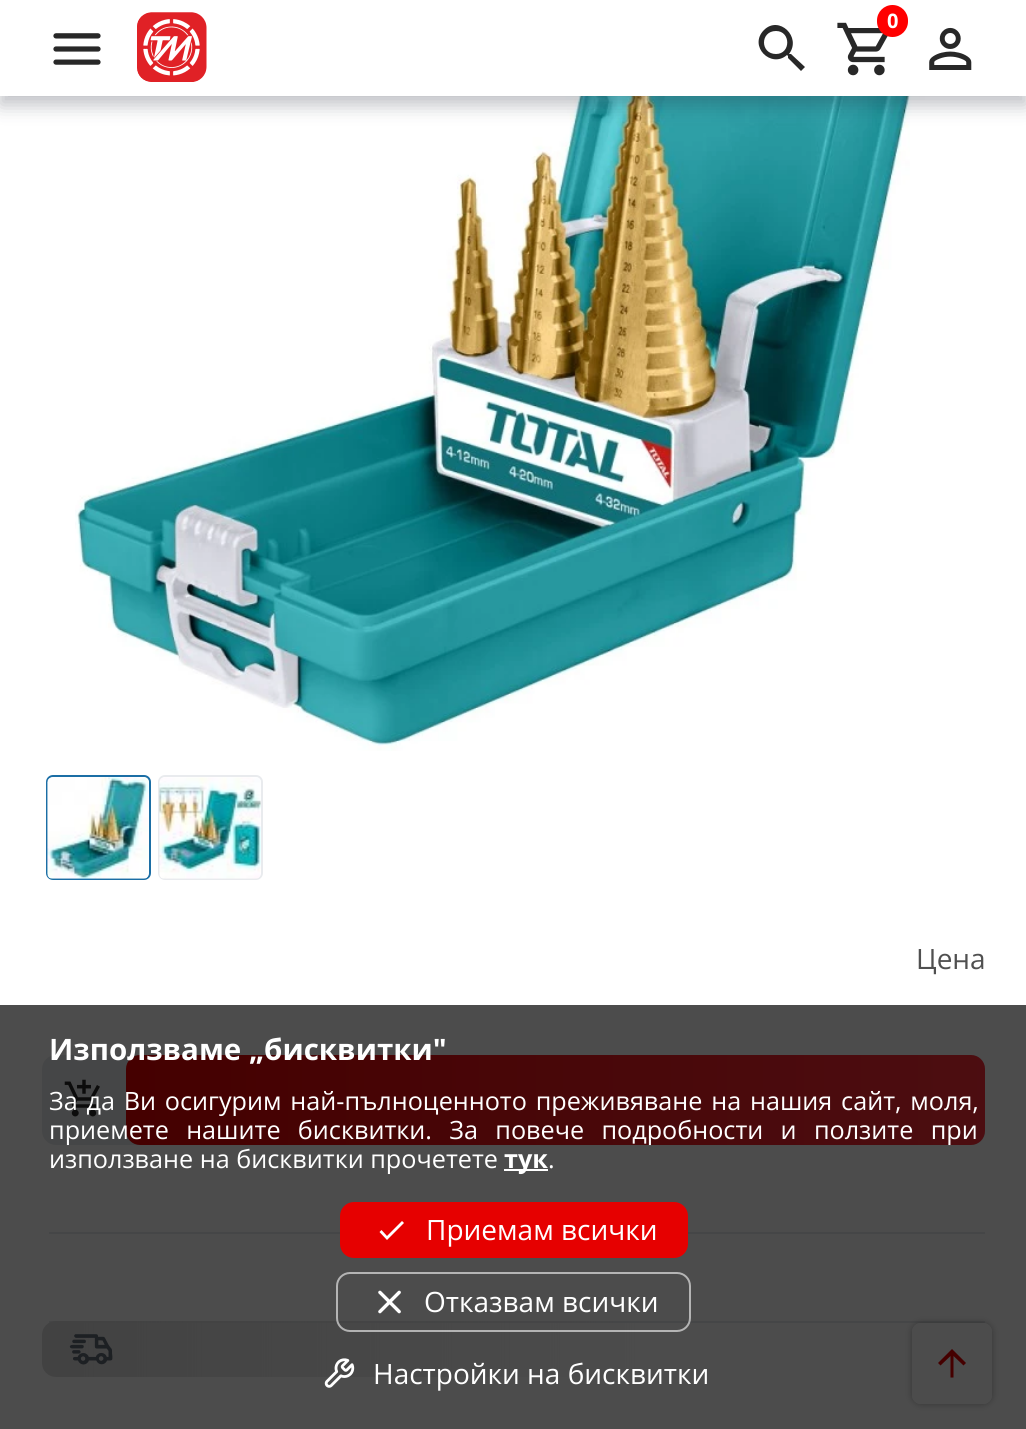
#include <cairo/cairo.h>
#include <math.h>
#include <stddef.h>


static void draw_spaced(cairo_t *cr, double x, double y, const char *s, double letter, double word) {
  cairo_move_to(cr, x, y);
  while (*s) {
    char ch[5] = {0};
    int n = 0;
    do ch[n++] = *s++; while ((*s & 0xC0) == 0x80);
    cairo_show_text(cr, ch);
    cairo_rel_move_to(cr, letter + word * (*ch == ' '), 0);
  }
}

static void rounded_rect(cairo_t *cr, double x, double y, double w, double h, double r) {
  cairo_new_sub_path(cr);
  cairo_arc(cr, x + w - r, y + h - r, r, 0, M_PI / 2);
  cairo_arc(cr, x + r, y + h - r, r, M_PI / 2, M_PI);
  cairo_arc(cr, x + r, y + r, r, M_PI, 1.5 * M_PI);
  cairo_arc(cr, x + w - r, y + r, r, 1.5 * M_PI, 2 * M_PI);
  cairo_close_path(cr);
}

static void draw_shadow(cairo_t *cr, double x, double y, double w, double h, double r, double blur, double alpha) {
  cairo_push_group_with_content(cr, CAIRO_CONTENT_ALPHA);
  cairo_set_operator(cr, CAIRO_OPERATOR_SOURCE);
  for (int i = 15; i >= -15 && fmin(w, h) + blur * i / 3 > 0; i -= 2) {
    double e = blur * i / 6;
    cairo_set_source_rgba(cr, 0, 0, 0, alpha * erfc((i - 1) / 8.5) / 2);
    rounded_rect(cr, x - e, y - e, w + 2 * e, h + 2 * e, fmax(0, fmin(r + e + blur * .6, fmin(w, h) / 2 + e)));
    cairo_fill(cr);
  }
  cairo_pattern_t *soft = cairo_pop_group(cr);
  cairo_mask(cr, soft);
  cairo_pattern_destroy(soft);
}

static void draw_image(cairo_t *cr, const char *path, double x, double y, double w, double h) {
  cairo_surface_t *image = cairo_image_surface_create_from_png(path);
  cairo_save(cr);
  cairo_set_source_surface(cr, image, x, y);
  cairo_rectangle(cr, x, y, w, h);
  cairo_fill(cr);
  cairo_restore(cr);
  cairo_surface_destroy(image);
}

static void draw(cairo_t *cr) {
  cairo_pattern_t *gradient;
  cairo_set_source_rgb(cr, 1, 1, 1);
  cairo_paint(cr);
  draw_image(cr, "images/5.png", 75, 96, 857, 655);
  cairo_set_source_rgb(cr, 34 / 255.0, 38 / 255.0, 54 / 255.0);
  draw_shadow(cr, 0, -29, 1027, 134, 0, 9.5, 0.29);
  cairo_set_source_rgb(cr, 1, 1, 1);
  cairo_rectangle(cr, 0, 0, 1026, 96);
  cairo_fill(cr);
  draw_image(cr, "images/1.png", 137, 12, 70, 70);
  draw_image(cr, "images/2.png", 837, 22, 51, 54);
  cairo_set_source_rgb(cr, 1, 0, 0);
  rounded_rect(cr, 877, 5, 31, 32, 15.5);
  cairo_fill(cr);
  draw_image(cr, "images/3.png", 53, 33, 48, 32);
  cairo_set_source_rgb(cr, 40 / 255.0, 40 / 255.0, 40 / 255.0);
  cairo_new_path(cr);
  cairo_move_to(cr, 776, 54);
  cairo_curve_to(cr, 791, 54, 791, 31, 776, 31);
  cairo_curve_to(cr, 760, 31, 760, 54, 776, 54);
  cairo_close_path(cr);
  cairo_move_to(cr, 791, 54);
  cairo_line_to(cr, 805, 67);
  cairo_line_to(cr, 801, 71);
  cairo_line_to(cr, 788, 58);
  cairo_line_to(cr, 788, 56);
  cairo_line_to(cr, 787, 55);
  cairo_curve_to(cr, 771, 69, 748, 46, 764, 30);
  cairo_curve_to(cr, 779, 15, 802, 37, 789, 54);
  cairo_close_path(cr);
  cairo_fill(cr);
  draw_image(cr, "images/4.png", 929, 27, 43, 43);
  rounded_rect(cr, 47, 776, 103, 103, 6);
  cairo_set_source_rgb(cr, 27 / 255.0, 110 / 255.0, 165 / 255.0);
  cairo_stroke(cr);
  draw_image(cr, "images/6.png", 47, 777, 102, 102);
  rounded_rect(cr, 159, 776, 103, 103, 6);
  cairo_set_source_rgb(cr, 233 / 255.0, 235 / 255.0, 238 / 255.0);
  cairo_stroke(cr);
  draw_image(cr, "images/7.png", 159, 777, 102, 102);
  rounded_rect(cr, 42, 1055, 943, 90, 14);
  cairo_fill(cr);
  draw_image(cr, "images/8.png", 64, 1079, 36, 38);
  gradient = cairo_pattern_create_linear(126, 1100, 985, 1100);
  cairo_pattern_add_color_stop_rgba(gradient, 0, 230 / 255.0, 0, 0, 1);
  cairo_pattern_add_color_stop_rgba(gradient, 1, 1, 45 / 255.0, 56 / 255.0, 1);
  cairo_set_source(cr, gradient);
  cairo_pattern_destroy(gradient);
  rounded_rect(cr, 126, 1055, 859, 90, 14);
  cairo_fill(cr);
  cairo_set_source_rgb(cr, 233 / 255.0, 235 / 255.0, 238 / 255.0);
  cairo_rectangle(cr, 49, 1232, 936, 2);
  cairo_fill(cr);
  cairo_rectangle(cr, 49, 1321, 936, 2);
  cairo_fill(cr);
  gradient = cairo_pattern_create_linear(42, 1349, 985, 1349);
  cairo_pattern_add_color_stop_rgba(gradient, 0, 221 / 255.0, 221 / 255.0, 221 / 255.0, 1);
  cairo_pattern_add_color_stop_rgba(gradient, 0.65, 221 / 255.0, 221 / 255.0, 221 / 255.0, 0);
  cairo_set_source(cr, gradient);
  cairo_pattern_destroy(gradient);
  rounded_rect(cr, 42, 1321, 943, 56, 14);
  cairo_fill(cr);
  draw_image(cr, "images/9.png", 69, 1334, 44, 31);
  cairo_save(cr);
  cairo_set_fill_rule(cr, CAIRO_FILL_RULE_EVEN_ODD);
  cairo_new_path(cr);
  cairo_move_to(cr, 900, 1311);
  cairo_line_to(cr, 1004, 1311);
  cairo_line_to(cr, 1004, 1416);
  cairo_line_to(cr, 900, 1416);
  cairo_close_path(cr);
  cairo_move_to(cr, 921, 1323);
  cairo_line_to(cr, 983, 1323);
  cairo_curve_to(cr, 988, 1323, 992, 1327, 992, 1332);
  cairo_line_to(cr, 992, 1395);
  cairo_curve_to(cr, 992, 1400, 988, 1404, 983, 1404);
  cairo_line_to(cr, 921, 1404);
  cairo_curve_to(cr, 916, 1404, 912, 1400, 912, 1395);
  cairo_line_to(cr, 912, 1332);
  cairo_curve_to(cr, 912, 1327, 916, 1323, 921, 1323);
  cairo_close_path(cr);
  cairo_clip(cr);
  cairo_set_source_rgb(cr, 0, 0, 0);
  draw_shadow(cr, 912, 1323, 80, 81, 9, 3.5, 0.3);
  cairo_restore(cr);
  cairo_set_source_rgba(cr, 1, 1, 1, 0.5);
  rounded_rect(cr, 913, 1324, 78, 79, 8);
  cairo_fill_preserve(cr);
  cairo_set_source_rgb(cr, 1, 1, 1);
  cairo_stroke(cr);
  cairo_set_source_rgb(cr, 230 / 255.0, 0, 0);
  cairo_new_path(cr);
  cairo_move_to(cr, 938, 1363);
  cairo_line_to(cr, 952, 1349);
  cairo_line_to(cr, 966, 1363);
  cairo_line_to(cr, 963.5, 1365.5);
  cairo_line_to(cr, 953.5, 1356);
  cairo_line_to(cr, 953.5, 1377.5);
  cairo_line_to(cr, 950.5, 1377.5);
  cairo_line_to(cr, 950.5, 1356);
  cairo_line_to(cr, 940.5, 1365.5);
  cairo_close_path(cr);
  cairo_fill(cr);
  cairo_set_source_rgba(cr, 0, 0, 0, 0.7);
  cairo_rectangle(cr, 0, 1005, 1026, 424);
  cairo_fill(cr);
  cairo_set_source_rgb(cr, 1, 1, 1);
  cairo_rectangle(cr, 504, 1169, 44, 2);
  cairo_fill(cr);
  cairo_set_source_rgb(cr, 230 / 255.0, 0, 0);
  rounded_rect(cr, 340, 1202, 348, 56, 14);
  cairo_fill(cr);
  cairo_set_source_rgb(cr, 1, 1, 1);
  cairo_new_path(cr);
  cairo_move_to(cr, 387, 1236);
  cairo_line_to(cr, 402, 1221);
  cairo_line_to(cr, 404, 1223);
  cairo_line_to(cr, 387, 1240);
  cairo_line_to(cr, 379.5, 1232);
  cairo_line_to(cr, 381.5, 1230);
  cairo_close_path(cr);
  cairo_fill(cr);
  rounded_rect(cr, 337, 1273, 353, 58, 13);
  cairo_set_source_rgba(cr, 1, 1, 1, 0.58);
  cairo_stroke(cr);
  draw_image(cr, "images/10.png", 378, 1290, 23, 24);
  draw_image(cr, "images/11.png", 324, 1358, 31, 30);
  cairo_select_font_face(cr, "Open Sans", CAIRO_FONT_SLANT_NORMAL, CAIRO_FONT_WEIGHT_BOLD);
  cairo_set_font_size(cr, 20);
  cairo_set_source_rgb(cr, 1, 1, 1);
  cairo_move_to(cr, 887, 28);
  cairo_show_text(cr, "0");
  cairo_select_font_face(cr, "Open Sans", CAIRO_FONT_SLANT_NORMAL, CAIRO_FONT_WEIGHT_NORMAL);
  cairo_set_font_size(cr, 28);
  cairo_set_source_rgb(cr, 80 / 255.0, 80 / 255.0, 80 / 255.0);
  cairo_move_to(cr, 916, 969);
  cairo_show_text(cr, "Цена");
  cairo_select_font_face(cr, "Open Sans", CAIRO_FONT_SLANT_NORMAL, CAIRO_FONT_WEIGHT_BOLD);
  cairo_set_font_size(cr, 29.5);
  cairo_set_source_rgb(cr, 1, 1, 1);
  cairo_move_to(cr, 49, 1060);
  cairo_show_text(cr, "Използваме „бисквитки\"");
  cairo_select_font_face(cr, "Open Sans", CAIRO_FONT_SLANT_NORMAL, CAIRO_FONT_WEIGHT_NORMAL);
  cairo_set_font_size(cr, 25.2);
  draw_spaced(cr, 49, 1110, "За да Ви осигурим най-пълноценното преживяване на нашия сайт, моля,", 0, 2.25);
  draw_spaced(cr, 49, 1139, "приемете нашите бисквитки. За повече подробности и ползите при", 0, 10.75);
  cairo_move_to(cr, 49, 1168);
  cairo_show_text(cr, "използване на бисквитки прочетете");
  cairo_select_font_face(cr, "Open Sans", CAIRO_FONT_SLANT_NORMAL, CAIRO_FONT_WEIGHT_BOLD);
  cairo_move_to(cr, 504, 1168);
  cairo_show_text(cr, "тук");
  cairo_select_font_face(cr, "Open Sans", CAIRO_FONT_SLANT_NORMAL, CAIRO_FONT_WEIGHT_NORMAL);
  cairo_move_to(cr, 548, 1168);
  cairo_show_text(cr, ".");
  cairo_set_font_size(cr, 28);
  cairo_move_to(cr, 426, 1240);
  cairo_show_text(cr, "Приемам всички");
  cairo_move_to(cr, 424, 1312);
  cairo_show_text(cr, "Отказвам всички");
  cairo_move_to(cr, 373, 1384);
  cairo_show_text(cr, "Настройки на бисквитки");
}

int main(void) {
  cairo_surface_t *surface = cairo_image_surface_create(CAIRO_FORMAT_RGB24, 1026, 1429);
  cairo_t *cr = cairo_create(surface);
  cairo_font_options_t *options = cairo_font_options_create();
  cairo_font_options_set_hint_metrics(options, CAIRO_HINT_METRICS_OFF);
  cairo_font_options_set_hint_style(options, CAIRO_HINT_STYLE_NONE);
  cairo_set_font_options(cr, options);
  cairo_set_miter_limit(cr, 4);
  draw(cr);
  cairo_surface_write_to_png(surface, "out.png");
  cairo_font_options_destroy(options);
  cairo_destroy(cr);
  cairo_surface_destroy(surface);
  return 0;
}
